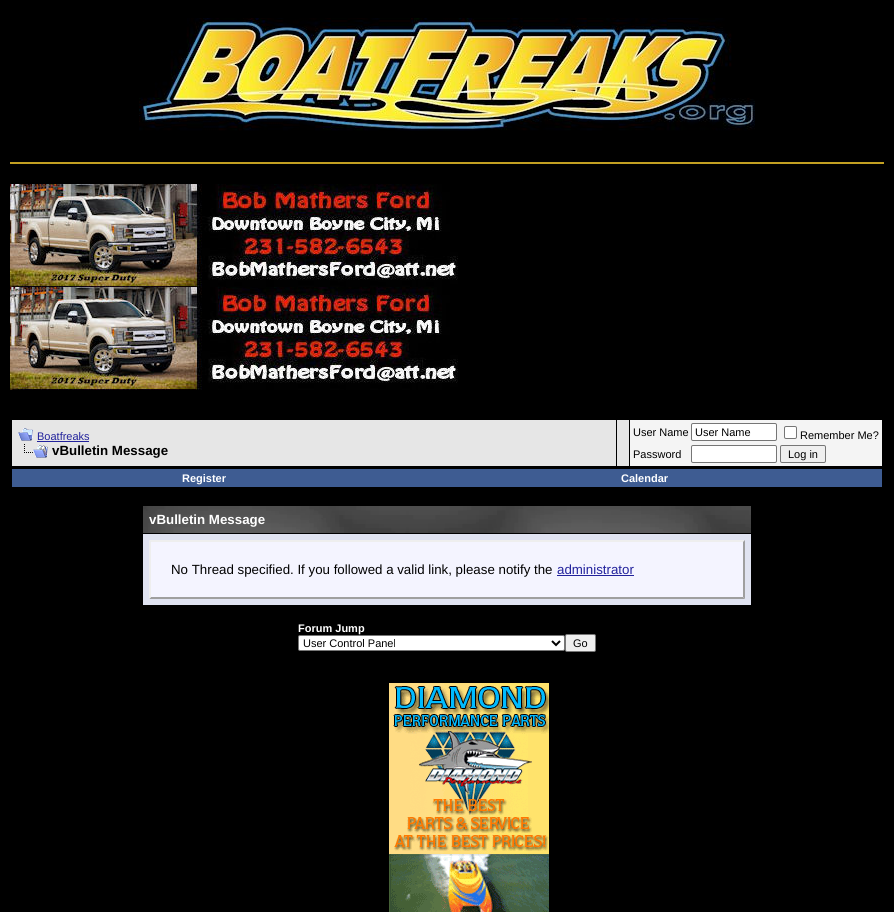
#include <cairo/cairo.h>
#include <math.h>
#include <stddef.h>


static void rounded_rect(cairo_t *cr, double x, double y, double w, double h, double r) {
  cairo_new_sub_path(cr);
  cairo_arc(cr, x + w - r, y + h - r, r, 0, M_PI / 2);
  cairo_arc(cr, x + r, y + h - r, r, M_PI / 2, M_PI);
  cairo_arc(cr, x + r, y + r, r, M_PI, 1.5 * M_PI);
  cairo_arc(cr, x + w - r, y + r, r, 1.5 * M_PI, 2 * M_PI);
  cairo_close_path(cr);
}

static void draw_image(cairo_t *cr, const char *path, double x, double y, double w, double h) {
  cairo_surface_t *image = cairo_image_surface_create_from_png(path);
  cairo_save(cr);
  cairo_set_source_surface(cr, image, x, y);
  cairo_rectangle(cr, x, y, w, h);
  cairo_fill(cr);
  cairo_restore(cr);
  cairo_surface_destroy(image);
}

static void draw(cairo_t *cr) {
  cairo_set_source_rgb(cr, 0, 0, 0);
  cairo_paint(cr);
  draw_image(cr, "images/1.png", 139, 18, 616, 113);
  cairo_set_source_rgb(cr, 195 / 255.0, 160 / 255.0, 34 / 255.0);
  cairo_rectangle(cr, 10, 162, 874, 2);
  cairo_fill(cr);
  draw_image(cr, "images/2.png", 10, 184, 448, 103);
  draw_image(cr, "images/2.png", 10, 287, 448, 103);
  cairo_set_source_rgb(cr, 230 / 255.0, 230 / 255.0, 230 / 255.0);
  cairo_rectangle(cr, 12, 420, 604, 46);
  cairo_fill(cr);
  draw_image(cr, "images/3.png", 18, 428, 15, 13);
  cairo_set_source_rgb(cr, 34 / 255.0, 34 / 255.0, 156 / 255.0);
  cairo_rectangle(cr, 37, 441, 52, 1);
  cairo_fill(cr);
  draw_image(cr, "images/4.png", 24, 444, 24, 14);
  cairo_set_source_rgb(cr, 230 / 255.0, 230 / 255.0, 230 / 255.0);
  cairo_rectangle(cr, 617, 420, 12, 46);
  cairo_fill(cr);
  cairo_set_source_rgb(cr, 244 / 255.0, 244 / 255.0, 244 / 255.0);
  cairo_rectangle(cr, 630, 420, 252, 46);
  cairo_fill(cr);
  cairo_set_source_rgb(cr, 1, 1, 1);
  rounded_rect(cr, 691.5, 423.5, 85, 17, 1.5);
  cairo_fill_preserve(cr);
  cairo_set_source_rgb(cr, 118 / 255.0, 118 / 255.0, 118 / 255.0);
  cairo_set_line_width(cr, 1);
  cairo_stroke(cr);
  cairo_set_source_rgb(cr, 1, 1, 1);
  rounded_rect(cr, 784.5, 426.5, 12, 12, 1.5);
  cairo_fill_preserve(cr);
  cairo_set_source_rgb(cr, 118 / 255.0, 118 / 255.0, 118 / 255.0);
  cairo_stroke(cr);
  cairo_set_source_rgb(cr, 1, 1, 1);
  rounded_rect(cr, 691.5, 445.5, 85, 17, 1.5);
  cairo_fill_preserve(cr);
  cairo_set_source_rgb(cr, 118 / 255.0, 118 / 255.0, 118 / 255.0);
  cairo_stroke(cr);
  cairo_set_source_rgb(cr, 239 / 255.0, 239 / 255.0, 239 / 255.0);
  rounded_rect(cr, 780.5, 445.5, 45, 17, 1.5);
  cairo_fill_preserve(cr);
  cairo_set_source_rgb(cr, 118 / 255.0, 118 / 255.0, 118 / 255.0);
  cairo_stroke(cr);
  cairo_set_source_rgb(cr, 62 / 255.0, 92 / 255.0, 146 / 255.0);
  cairo_rectangle(cr, 12, 469, 870, 18);
  cairo_fill(cr);
  draw_image(cr, "images/5.png", 143, 506, 608, 27);
  cairo_set_source_rgb(cr, 224 / 255.0, 227 / 255.0, 241 / 255.0);
  cairo_rectangle(cr, 143, 534, 608, 71);
  cairo_fill(cr);
  cairo_set_source_rgb(cr, 244 / 255.0, 244 / 255.0, 1);
  cairo_rectangle(cr, 149, 542, 596, 57);
  cairo_fill(cr);
  cairo_set_source_rgb(cr, 238 / 255.0, 238 / 255.0, 238 / 255.0);
  cairo_new_path(cr);
  cairo_move_to(cr, 149, 540);
  cairo_line_to(cr, 745, 540);
  cairo_line_to(cr, 743, 542);
  cairo_line_to(cr, 151, 542);
  cairo_close_path(cr);
  cairo_fill(cr);
  cairo_set_source_rgb(cr, 159 / 255.0, 159 / 255.0, 159 / 255.0);
  cairo_new_path(cr);
  cairo_move_to(cr, 745, 540);
  cairo_line_to(cr, 745, 599);
  cairo_line_to(cr, 743, 597);
  cairo_line_to(cr, 743, 542);
  cairo_close_path(cr);
  cairo_fill(cr);
  cairo_new_path(cr);
  cairo_move_to(cr, 745, 599);
  cairo_line_to(cr, 149, 599);
  cairo_line_to(cr, 151, 597);
  cairo_line_to(cr, 743, 597);
  cairo_close_path(cr);
  cairo_fill(cr);
  cairo_set_source_rgb(cr, 238 / 255.0, 238 / 255.0, 238 / 255.0);
  cairo_new_path(cr);
  cairo_move_to(cr, 149, 599);
  cairo_line_to(cr, 149, 540);
  cairo_line_to(cr, 151, 542);
  cairo_line_to(cr, 151, 597);
  cairo_close_path(cr);
  cairo_fill(cr);
  cairo_set_source_rgb(cr, 34 / 255.0, 34 / 255.0, 156 / 255.0);
  cairo_rectangle(cr, 557, 575, 77, 1);
  cairo_fill(cr);
  cairo_set_source_rgb(cr, 1, 1, 1);
  rounded_rect(cr, 298.5, 635.5, 266, 15, 1.5);
  cairo_fill_preserve(cr);
  cairo_set_source_rgb(cr, 118 / 255.0, 118 / 255.0, 118 / 255.0);
  cairo_stroke(cr);
  cairo_new_path(cr);
  cairo_move_to(cr, 552, 641);
  cairo_line_to(cr, 556, 645);
  cairo_line_to(cr, 560, 641);
  cairo_set_source_rgb(cr, 0, 0, 0);
  cairo_set_line_width(cr, 2);
  cairo_stroke(cr);
  cairo_set_source_rgb(cr, 239 / 255.0, 239 / 255.0, 239 / 255.0);
  rounded_rect(cr, 565.5, 634.5, 30, 17, 1.5);
  cairo_fill_preserve(cr);
  cairo_set_source_rgb(cr, 118 / 255.0, 118 / 255.0, 118 / 255.0);
  cairo_set_line_width(cr, 1);
  cairo_stroke(cr);
  draw_image(cr, "images/6.png", 389, 683, 160, 229);
  cairo_select_font_face(cr, "Liberation Sans", CAIRO_FONT_SLANT_NORMAL, CAIRO_FONT_WEIGHT_NORMAL);
  cairo_set_font_size(cr, 11);
  cairo_set_source_rgb(cr, 34 / 255.0, 34 / 255.0, 156 / 255.0);
  cairo_move_to(cr, 37, 440);
  cairo_show_text(cr, "Boatfreaks");
  cairo_select_font_face(cr, "Liberation Sans", CAIRO_FONT_SLANT_NORMAL, CAIRO_FONT_WEIGHT_BOLD);
  cairo_set_font_size(cr, 13.3);
  cairo_set_source_rgb(cr, 0, 0, 0);
  cairo_move_to(cr, 52, 455);
  cairo_show_text(cr, "vBulletin Message");
  cairo_select_font_face(cr, "Liberation Sans", CAIRO_FONT_SLANT_NORMAL, CAIRO_FONT_WEIGHT_NORMAL);
  cairo_set_font_size(cr, 11);
  cairo_move_to(cr, 633, 436);
  cairo_show_text(cr, "User Name");
  cairo_move_to(cr, 695, 436);
  cairo_show_text(cr, "User Name");
  cairo_move_to(cr, 800, 439);
  cairo_show_text(cr, "Remember Me?");
  cairo_move_to(cr, 633, 458);
  cairo_show_text(cr, "Password");
  cairo_move_to(cr, 788, 458);
  cairo_show_text(cr, "Log in");
  cairo_select_font_face(cr, "Liberation Sans", CAIRO_FONT_SLANT_NORMAL, CAIRO_FONT_WEIGHT_BOLD);
  cairo_set_source_rgb(cr, 1, 1, 1);
  cairo_move_to(cr, 182, 482);
  cairo_show_text(cr, "Register");
  cairo_move_to(cr, 621, 482);
  cairo_show_text(cr, "Calendar");
  cairo_set_font_size(cr, 13.3);
  cairo_move_to(cr, 149, 524);
  cairo_show_text(cr, "vBulletin Message");
  cairo_select_font_face(cr, "Liberation Sans", CAIRO_FONT_SLANT_NORMAL, CAIRO_FONT_WEIGHT_NORMAL);
  cairo_set_source_rgb(cr, 0, 0, 0);
  cairo_move_to(cr, 171, 574);
  cairo_show_text(cr, "No Thread specified. If you followed a valid link, please notify the");
  cairo_set_source_rgb(cr, 34 / 255.0, 34 / 255.0, 156 / 255.0);
  cairo_move_to(cr, 557, 574);
  cairo_show_text(cr, "administrator");
  cairo_select_font_face(cr, "Liberation Sans", CAIRO_FONT_SLANT_NORMAL, CAIRO_FONT_WEIGHT_BOLD);
  cairo_set_font_size(cr, 11);
  cairo_set_source_rgb(cr, 1, 1, 1);
  cairo_move_to(cr, 298, 632);
  cairo_show_text(cr, "Forum Jump");
  cairo_select_font_face(cr, "Liberation Sans", CAIRO_FONT_SLANT_NORMAL, CAIRO_FONT_WEIGHT_NORMAL);
  cairo_set_source_rgb(cr, 0, 0, 0);
  cairo_move_to(cr, 303, 647);
  cairo_show_text(cr, "User Control Panel");
  cairo_move_to(cr, 573, 647);
  cairo_show_text(cr, "Go");
}

int main(void) {
  cairo_surface_t *surface = cairo_image_surface_create(CAIRO_FORMAT_RGB24, 894, 912);
  cairo_t *cr = cairo_create(surface);
  cairo_font_options_t *options = cairo_font_options_create();
  cairo_font_options_set_hint_metrics(options, CAIRO_HINT_METRICS_OFF);
  cairo_font_options_set_hint_style(options, CAIRO_HINT_STYLE_NONE);
  cairo_set_font_options(cr, options);
  cairo_set_miter_limit(cr, 4);
  draw(cr);
  cairo_surface_write_to_png(surface, "out.png");
  cairo_font_options_destroy(options);
  cairo_destroy(cr);
  cairo_surface_destroy(surface);
  return 0;
}
